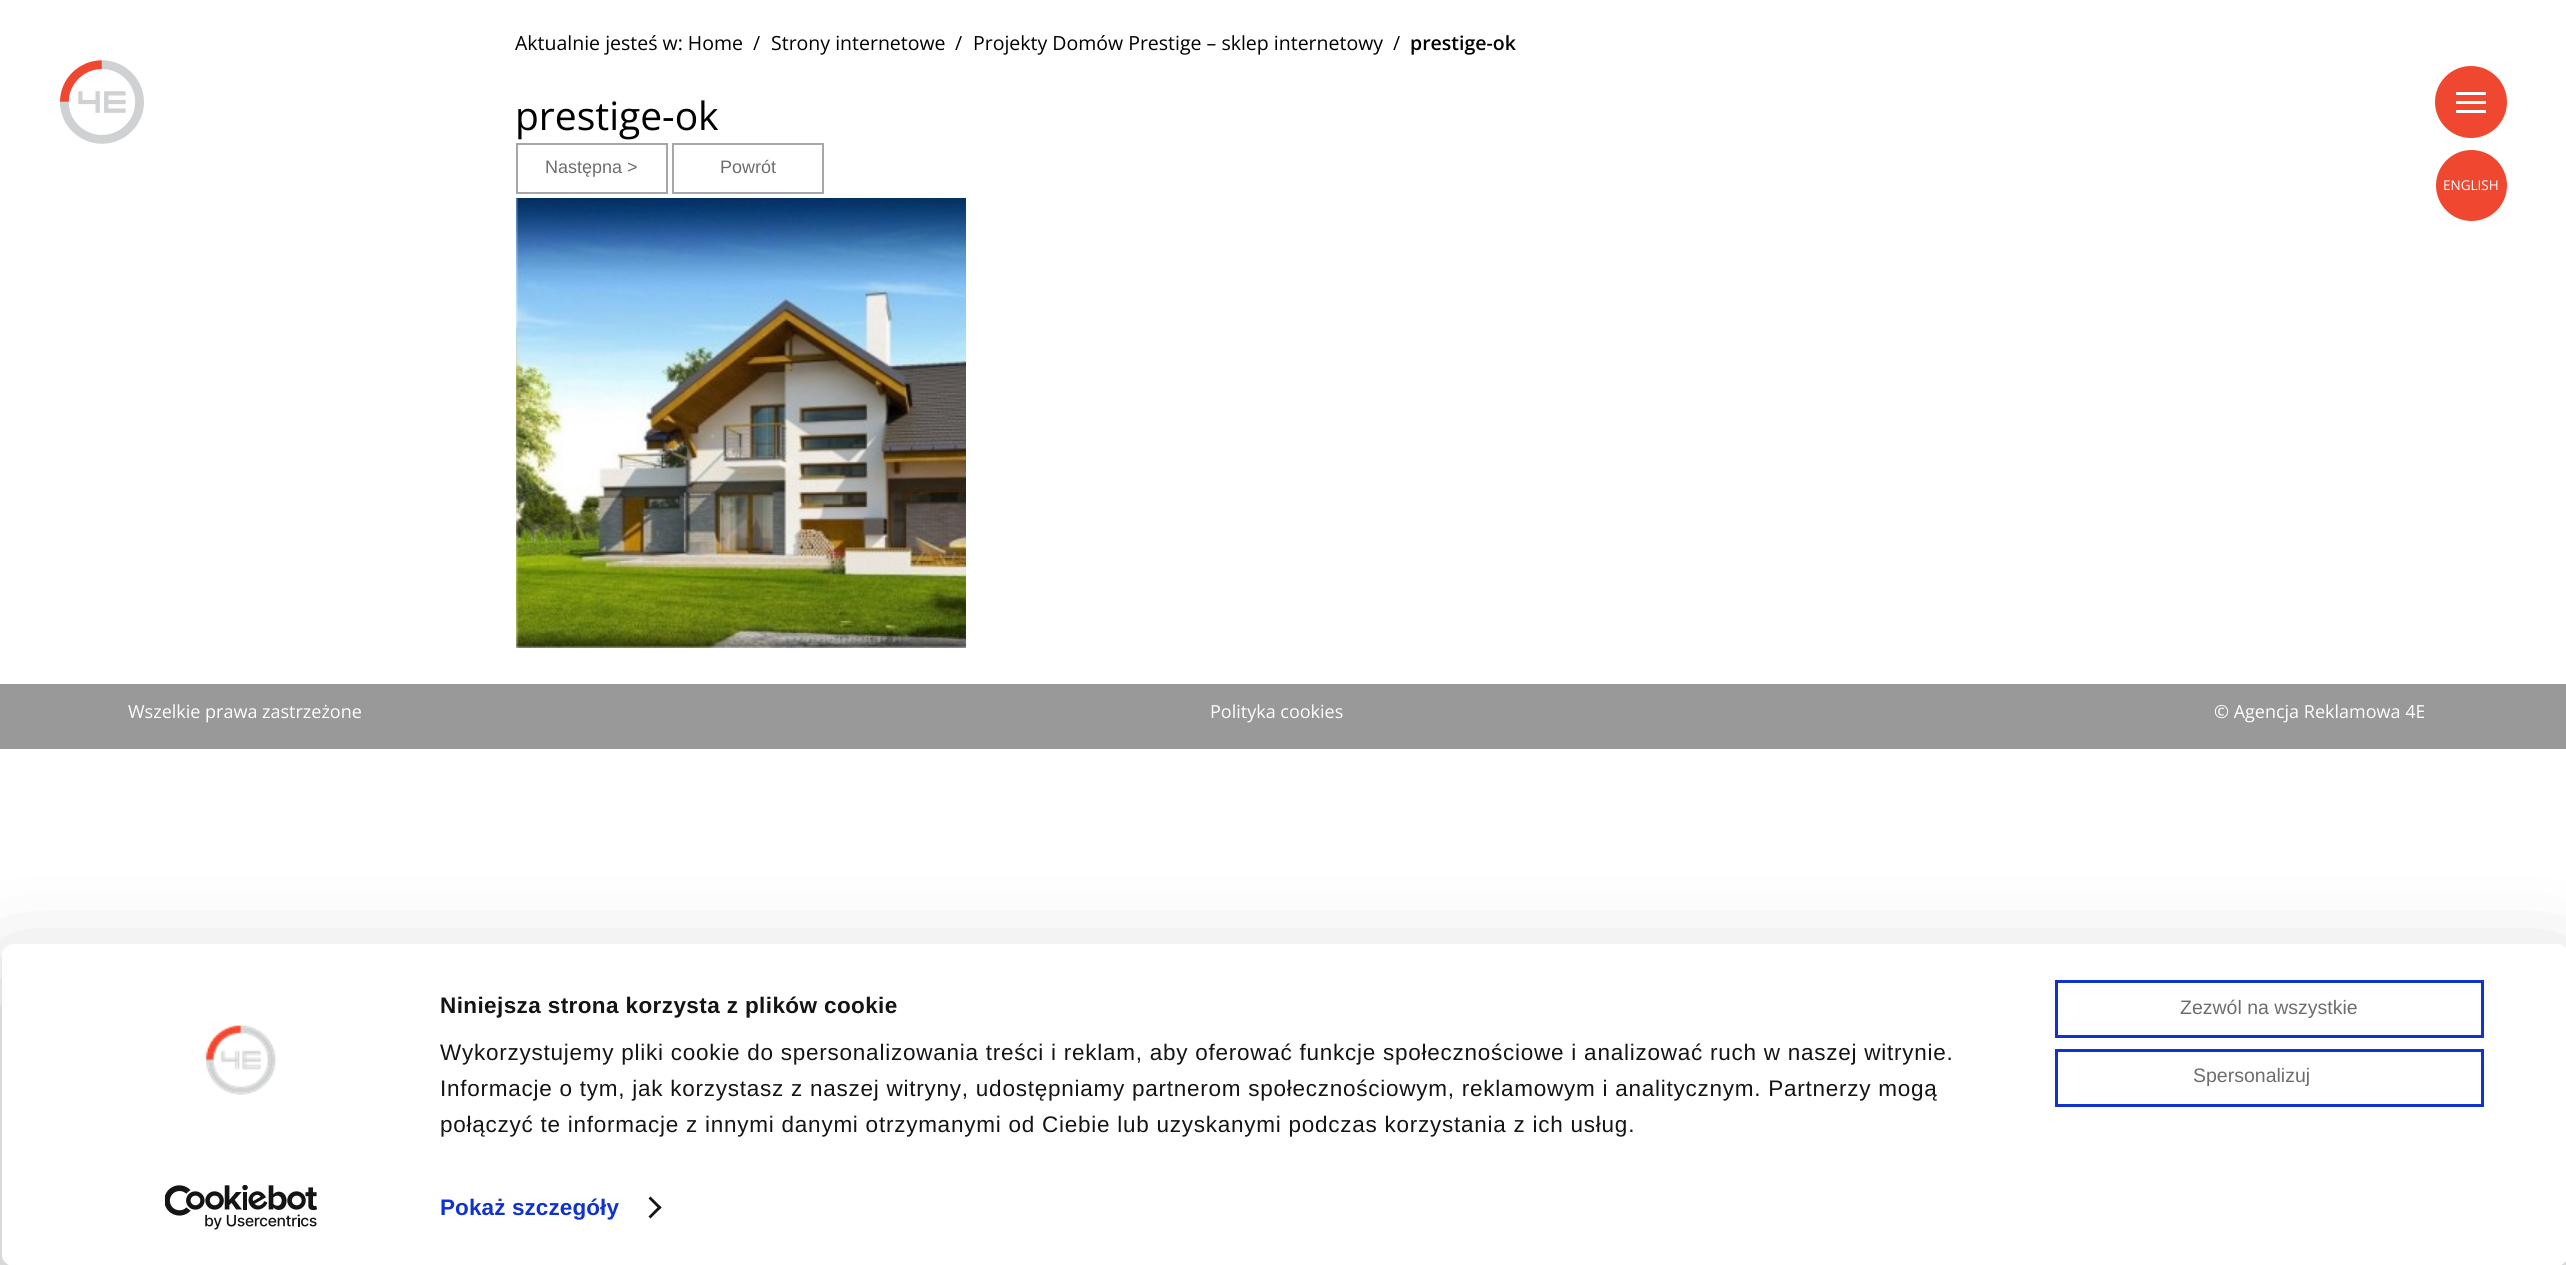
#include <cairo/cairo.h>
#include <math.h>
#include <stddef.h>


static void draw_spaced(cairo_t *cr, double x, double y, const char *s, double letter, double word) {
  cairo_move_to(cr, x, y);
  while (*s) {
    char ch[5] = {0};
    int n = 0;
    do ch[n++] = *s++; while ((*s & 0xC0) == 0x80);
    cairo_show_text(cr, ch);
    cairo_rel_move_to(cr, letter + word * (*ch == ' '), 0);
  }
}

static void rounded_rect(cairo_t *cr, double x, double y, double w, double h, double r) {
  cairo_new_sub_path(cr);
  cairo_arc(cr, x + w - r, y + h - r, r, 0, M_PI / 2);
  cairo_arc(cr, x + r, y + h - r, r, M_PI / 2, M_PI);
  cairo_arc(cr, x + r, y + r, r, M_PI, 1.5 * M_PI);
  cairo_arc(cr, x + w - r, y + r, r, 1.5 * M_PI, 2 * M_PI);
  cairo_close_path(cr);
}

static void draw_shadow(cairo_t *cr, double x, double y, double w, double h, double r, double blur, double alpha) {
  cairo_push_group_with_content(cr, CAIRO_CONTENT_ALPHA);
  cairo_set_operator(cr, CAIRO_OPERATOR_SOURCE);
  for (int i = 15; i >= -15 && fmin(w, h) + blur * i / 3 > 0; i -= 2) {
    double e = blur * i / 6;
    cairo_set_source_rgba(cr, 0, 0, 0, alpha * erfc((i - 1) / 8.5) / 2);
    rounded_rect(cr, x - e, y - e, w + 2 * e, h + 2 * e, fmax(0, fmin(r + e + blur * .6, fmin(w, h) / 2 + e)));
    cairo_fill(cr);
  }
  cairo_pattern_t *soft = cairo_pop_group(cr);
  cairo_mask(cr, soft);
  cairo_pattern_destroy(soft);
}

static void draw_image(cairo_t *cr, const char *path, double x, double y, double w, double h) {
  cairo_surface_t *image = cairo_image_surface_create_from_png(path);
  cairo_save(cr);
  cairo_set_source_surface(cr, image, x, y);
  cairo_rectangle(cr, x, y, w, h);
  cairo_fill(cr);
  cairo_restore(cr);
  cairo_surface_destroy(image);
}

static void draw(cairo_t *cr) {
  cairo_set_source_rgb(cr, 1, 1, 1);
  cairo_paint(cr);
  draw_image(cr, "images/1.png", 60, 60, 84, 84);
  cairo_rectangle(cr, 517, 144, 150, 49);
  cairo_set_source_rgb(cr, 167 / 255.0, 167 / 255.0, 167 / 255.0);
  cairo_stroke(cr);
  cairo_rectangle(cr, 673, 144, 150, 49);
  cairo_stroke(cr);
  draw_image(cr, "images/2.png", 516, 198, 450, 450);
  cairo_set_source_rgb(cr, 240 / 255.0, 71 / 255.0, 48 / 255.0);
  cairo_arc(cr, 2471, 102, 36, 0, 2 * M_PI);
  cairo_fill(cr);
  cairo_set_source_rgb(cr, 1, 1, 1);
  cairo_rectangle(cr, 2456, 92, 30, 3);
  cairo_fill(cr);
  cairo_rectangle(cr, 2456, 101, 30, 3);
  cairo_fill(cr);
  cairo_rectangle(cr, 2456, 110, 30, 3);
  cairo_fill(cr);
  cairo_set_source_rgb(cr, 240 / 255.0, 71 / 255.0, 48 / 255.0);
  cairo_arc(cr, 2471.5, 185.5, 35.5, 0, 2 * M_PI);
  cairo_fill(cr);
  cairo_set_source_rgb(cr, 153 / 255.0, 153 / 255.0, 153 / 255.0);
  cairo_rectangle(cr, 0, 684, 2566, 65);
  cairo_fill(cr);
  cairo_save(cr);
  cairo_set_fill_rule(cr, CAIRO_FILL_RULE_EVEN_ODD);
  cairo_new_path(cr);
  cairo_move_to(cr, 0, 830);
  cairo_line_to(cr, 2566, 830);
  cairo_line_to(cr, 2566, 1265);
  cairo_line_to(cr, 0, 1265);
  cairo_close_path(cr);
  cairo_move_to(cr, 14, 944);
  cairo_line_to(cr, 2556, 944);
  cairo_curve_to(cr, 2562.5, 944, 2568, 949.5, 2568, 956);
  cairo_line_to(cr, 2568, 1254);
  cairo_curve_to(cr, 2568, 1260.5, 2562.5, 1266, 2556, 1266);
  cairo_line_to(cr, 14, 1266);
  cairo_curve_to(cr, 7.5, 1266, 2, 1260.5, 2, 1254);
  cairo_line_to(cr, 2, 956);
  cairo_curve_to(cr, 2, 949.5, 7.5, 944, 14, 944);
  cairo_close_path(cr);
  cairo_clip(cr);
  cairo_set_source_rgb(cr, 0, 0, 0);
  draw_shadow(cr, 2, 989, 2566, 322, 12, 52.5, 0.3);
  cairo_restore(cr);
  cairo_set_source_rgb(cr, 1, 1, 1);
  rounded_rect(cr, 2, 944, 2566, 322, 12);
  cairo_fill(cr);
  draw_image(cr, "images/3.png", 206, 1025, 70, 70);
  draw_image(cr, "images/4.png", 165, 1185, 153, 45);
  cairo_set_source_rgb(cr, 20 / 255.0, 20 / 255.0, 20 / 255.0);
  cairo_new_path(cr);
  cairo_move_to(cr, 650.5, 1196.5);
  cairo_line_to(cr, 661.5, 1207.5);
  cairo_line_to(cr, 659.5, 1209.5);
  cairo_line_to(cr, 648.5, 1198.5);
  cairo_close_path(cr);
  cairo_fill(cr);
  cairo_new_path(cr);
  cairo_move_to(cr, 659.5, 1205.5);
  cairo_line_to(cr, 661.5, 1207.5);
  cairo_line_to(cr, 650.5, 1218.5);
  cairo_line_to(cr, 648.5, 1216.5);
  cairo_close_path(cr);
  cairo_fill(cr);
  cairo_rectangle(cr, 2056.5, 981.5, 426, 55);
  cairo_set_source_rgb(cr, 16 / 255.0, 50 / 255.0, 207 / 255.0);
  cairo_set_line_width(cr, 3);
  cairo_stroke(cr);
  cairo_rectangle(cr, 2056.5, 1050.5, 426, 55);
  cairo_stroke(cr);
  cairo_select_font_face(cr, "Open Sans", CAIRO_FONT_SLANT_NORMAL, CAIRO_FONT_WEIGHT_NORMAL);
  cairo_set_font_size(cr, 19.5);
  cairo_set_source_rgb(cr, 0, 0, 0);
  cairo_move_to(cr, 515, 50);
  cairo_show_text(cr, "Aktualnie jesteś w: Home");
  cairo_move_to(cr, 753, 50);
  cairo_show_text(cr, "/");
  cairo_move_to(cr, 771, 50);
  cairo_show_text(cr, "Strony internetowe");
  cairo_move_to(cr, 955, 50);
  cairo_show_text(cr, "/");
  cairo_move_to(cr, 973, 50);
  cairo_show_text(cr, "Projekty Domów Prestige – sklep internetowy");
  cairo_move_to(cr, 1393, 50);
  cairo_show_text(cr, "/");
  cairo_select_font_face(cr, "Open Sans SemiBold", CAIRO_FONT_SLANT_NORMAL, CAIRO_FONT_WEIGHT_NORMAL);
  cairo_move_to(cr, 1410, 50);
  cairo_show_text(cr, "prestige-ok");
  cairo_select_font_face(cr, "Open Sans", CAIRO_FONT_SLANT_NORMAL, CAIRO_FONT_WEIGHT_NORMAL);
  cairo_set_font_size(cr, 39);
  cairo_move_to(cr, 515, 130);
  cairo_show_text(cr, "prestige-ok");
  cairo_select_font_face(cr, "Liberation Sans", CAIRO_FONT_SLANT_NORMAL, CAIRO_FONT_WEIGHT_NORMAL);
  cairo_set_font_size(cr, 18);
  cairo_set_source_rgb(cr, 109 / 255.0, 109 / 255.0, 109 / 255.0);
  cairo_move_to(cr, 545, 173);
  cairo_show_text(cr, "Następna >");
  cairo_move_to(cr, 720, 173);
  cairo_show_text(cr, "Powrót");
  cairo_select_font_face(cr, "Open Sans", CAIRO_FONT_SLANT_NORMAL, CAIRO_FONT_WEIGHT_NORMAL);
  cairo_set_font_size(cr, 13.5);
  cairo_set_source_rgb(cr, 1, 1, 1);
  cairo_move_to(cr, 2443, 190);
  cairo_show_text(cr, "ENGLISH");
  cairo_set_font_size(cr, 18);
  cairo_move_to(cr, 128, 718);
  cairo_show_text(cr, "Wszelkie prawa zastrzeżone");
  cairo_move_to(cr, 1210, 718);
  cairo_show_text(cr, "Polityka cookies");
  cairo_move_to(cr, 2214, 718);
  cairo_show_text(cr, "© Agencja Reklamowa 4E");
  cairo_select_font_face(cr, "Liberation Sans", CAIRO_FONT_SLANT_NORMAL, CAIRO_FONT_WEIGHT_BOLD);
  cairo_set_font_size(cr, 22.5);
  cairo_set_source_rgb(cr, 20 / 255.0, 20 / 255.0, 20 / 255.0);
  draw_spaced(cr, 440, 1013, "Niniejsza strona korzysta z plików cookie", 0.4, 0);
  cairo_select_font_face(cr, "Liberation Sans", CAIRO_FONT_SLANT_NORMAL, CAIRO_FONT_WEIGHT_NORMAL);
  draw_spaced(cr, 440, 1060, "Wykorzystujemy pliki cookie do spersonalizowania treści i reklam, aby oferować funkcje społecznościowe i analizować ruch w naszej witrynie.", 0.75, 0);
  draw_spaced(cr, 440, 1096, "Informacje o tym, jak korzystasz z naszej witryny, udostępniamy partnerom społecznościowym, reklamowym i analitycznym. Partnerzy mogą", 0.75, 0);
  draw_spaced(cr, 440, 1132, "połączyć te informacje z innymi danymi otrzymanymi od Ciebie lub uzyskanymi podczas korzystania z ich usług.", 0.75, 0);
  cairo_select_font_face(cr, "Liberation Sans", CAIRO_FONT_SLANT_NORMAL, CAIRO_FONT_WEIGHT_BOLD);
  cairo_set_source_rgb(cr, 16 / 255.0, 50 / 255.0, 207 / 255.0);
  draw_spaced(cr, 440, 1215, "Pokaż szczegóły", 0.1, 0);
  cairo_select_font_face(cr, "Liberation Sans", CAIRO_FONT_SLANT_NORMAL, CAIRO_FONT_WEIGHT_NORMAL);
  cairo_set_font_size(cr, 19.5);
  cairo_set_source_rgb(cr, 109 / 255.0, 109 / 255.0, 109 / 255.0);
  cairo_move_to(cr, 2180, 1014);
  cairo_show_text(cr, "Zezwól na wszystkie");
  cairo_move_to(cr, 2193, 1082);
  cairo_show_text(cr, "Spersonalizuj");
}

int main(void) {
  cairo_surface_t *surface = cairo_image_surface_create(CAIRO_FORMAT_RGB24, 2566, 1265);
  cairo_t *cr = cairo_create(surface);
  cairo_font_options_t *options = cairo_font_options_create();
  cairo_font_options_set_hint_metrics(options, CAIRO_HINT_METRICS_OFF);
  cairo_font_options_set_hint_style(options, CAIRO_HINT_STYLE_NONE);
  cairo_set_font_options(cr, options);
  cairo_set_miter_limit(cr, 4);
  draw(cr);
  cairo_surface_write_to_png(surface, "out.png");
  cairo_font_options_destroy(options);
  cairo_destroy(cr);
  cairo_surface_destroy(surface);
  return 0;
}
